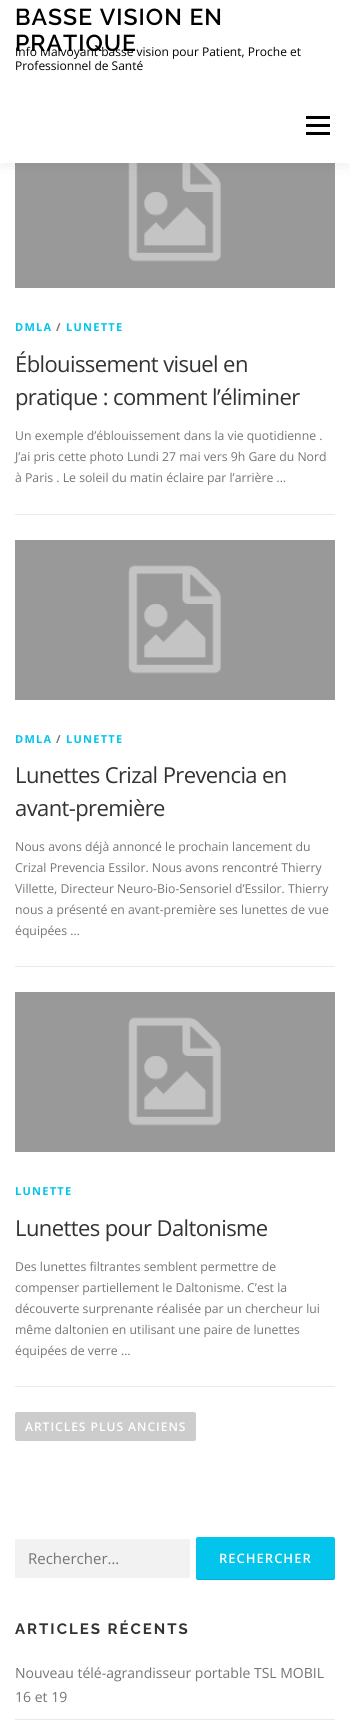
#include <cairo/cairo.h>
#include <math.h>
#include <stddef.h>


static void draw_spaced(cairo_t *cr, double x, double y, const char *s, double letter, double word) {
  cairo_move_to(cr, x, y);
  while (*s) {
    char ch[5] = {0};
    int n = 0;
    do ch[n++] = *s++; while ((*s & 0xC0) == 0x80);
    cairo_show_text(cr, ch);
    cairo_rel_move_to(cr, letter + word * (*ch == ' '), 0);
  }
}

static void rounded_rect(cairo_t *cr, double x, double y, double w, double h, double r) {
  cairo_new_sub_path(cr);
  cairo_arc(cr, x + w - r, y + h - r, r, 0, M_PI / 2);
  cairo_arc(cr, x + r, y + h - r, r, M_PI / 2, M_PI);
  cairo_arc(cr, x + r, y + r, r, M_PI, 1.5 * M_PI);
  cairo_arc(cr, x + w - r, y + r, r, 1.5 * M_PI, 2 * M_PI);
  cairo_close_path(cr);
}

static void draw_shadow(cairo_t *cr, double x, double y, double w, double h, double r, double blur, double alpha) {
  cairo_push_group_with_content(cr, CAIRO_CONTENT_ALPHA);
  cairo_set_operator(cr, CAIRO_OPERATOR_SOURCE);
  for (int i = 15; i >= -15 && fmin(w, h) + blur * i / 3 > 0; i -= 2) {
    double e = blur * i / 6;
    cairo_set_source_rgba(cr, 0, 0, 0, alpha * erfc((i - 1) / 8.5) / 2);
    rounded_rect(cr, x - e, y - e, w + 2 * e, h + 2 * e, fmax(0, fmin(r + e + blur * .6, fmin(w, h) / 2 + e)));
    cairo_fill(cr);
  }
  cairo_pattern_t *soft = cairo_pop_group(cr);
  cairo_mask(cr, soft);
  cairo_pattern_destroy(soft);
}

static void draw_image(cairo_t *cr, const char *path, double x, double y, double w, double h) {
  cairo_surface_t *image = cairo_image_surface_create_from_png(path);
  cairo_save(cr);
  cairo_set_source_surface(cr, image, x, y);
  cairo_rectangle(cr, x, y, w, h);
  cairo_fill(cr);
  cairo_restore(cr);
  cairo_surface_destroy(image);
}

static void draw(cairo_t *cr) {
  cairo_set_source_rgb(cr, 1, 1, 1);
  cairo_paint(cr);
  draw_image(cr, "images/1.png", 15, 163, 320, 125);
  cairo_set_source_rgb(cr, 50 / 255.0, 50 / 255.0, 50 / 255.0);
  draw_shadow(cr, 0, 5, 350, 163, 0, 5, 0.06);
  cairo_set_source_rgb(cr, 1, 1, 1);
  cairo_rectangle(cr, 0, 1, 350, 162);
  cairo_fill(cr);
  cairo_set_source_rgb(cr, 0, 0, 0);
  cairo_rectangle(cr, 306, 124, 24, 3);
  cairo_fill(cr);
  cairo_rectangle(cr, 306, 116, 24, 3);
  cairo_fill(cr);
  cairo_rectangle(cr, 306, 132, 24, 3);
  cairo_fill(cr);
  cairo_set_source_rgb(cr, 233 / 255.0, 233 / 255.0, 233 / 255.0);
  cairo_rectangle(cr, 15, 514, 320, 1);
  cairo_fill(cr);
  draw_image(cr, "images/2.png", 15, 540, 320, 160);
  cairo_rectangle(cr, 15, 966, 320, 1);
  cairo_fill(cr);
  cairo_rectangle(cr, 15, 1386, 320, 1);
  cairo_fill(cr);
  draw_image(cr, "images/2.png", 15, 992, 320, 160);
  cairo_set_source_rgb(cr, 204 / 255.0, 204 / 255.0, 204 / 255.0);
  rounded_rect(cr, 15, 1412, 181, 29, 2);
  cairo_fill(cr);
  cairo_set_source_rgb(cr, 242 / 255.0, 242 / 255.0, 242 / 255.0);
  cairo_rectangle(cr, 15, 1539, 175, 39);
  cairo_fill(cr);
  cairo_set_source_rgb(cr, 3 / 255.0, 196 / 255.0, 235 / 255.0);
  rounded_rect(cr, 196, 1537, 139, 43, 2);
  cairo_fill(cr);
  cairo_set_source_rgba(cr, 0, 0, 0, 0.1);
  cairo_new_path(cr);
  cairo_move_to(cr, 196, 1577);
  cairo_curve_to(cr, 196, 1578, 196, 1580, 198, 1580);
  cairo_line_to(cr, 333, 1580);
  cairo_curve_to(cr, 335, 1580, 335, 1578, 335, 1577);
  cairo_curve_to(cr, 335, 1578, 334, 1579, 333, 1579);
  cairo_line_to(cr, 198, 1579);
  cairo_curve_to(cr, 197, 1579, 196, 1578, 196, 1577);
  cairo_close_path(cr);
  cairo_fill(cr);
  cairo_set_source_rgb(cr, 233 / 255.0, 233 / 255.0, 233 / 255.0);
  cairo_rectangle(cr, 15, 1719, 320, 1);
  cairo_fill(cr);
  cairo_select_font_face(cr, "Raleway SemiBold", CAIRO_FONT_SLANT_NORMAL, CAIRO_FONT_WEIGHT_NORMAL);
  cairo_set_font_size(cr, 23);
  cairo_set_source_rgb(cr, 0, 0, 0);
  draw_spaced(cr, 15, 25, "BASSE VISION EN", 1, 0);
  draw_spaced(cr, 15, 51, "PRATIQUE", 1, 0);
  cairo_select_font_face(cr, "Open Sans", CAIRO_FONT_SLANT_NORMAL, CAIRO_FONT_WEIGHT_NORMAL);
  cairo_set_font_size(cr, 12);
  cairo_move_to(cr, 15, 56);
  cairo_show_text(cr, "Info Malvoyant basse vision pour Patient, Proche et");
  cairo_move_to(cr, 15, 70);
  cairo_show_text(cr, "Professionnel de Santé");
  cairo_select_font_face(cr, "Open Sans", CAIRO_FONT_SLANT_NORMAL, CAIRO_FONT_WEIGHT_BOLD);
  cairo_set_font_size(cr, 11);
  cairo_set_source_rgb(cr, 3 / 255.0, 196 / 255.0, 235 / 255.0);
  draw_spaced(cr, 15, 331, "DMLA", 1.25, 0);
  cairo_set_source_rgb(cr, 117 / 255.0, 117 / 255.0, 117 / 255.0);
  draw_spaced(cr, 56, 331, "/", 1.25, 0);
  cairo_set_source_rgb(cr, 3 / 255.0, 196 / 255.0, 235 / 255.0);
  draw_spaced(cr, 66, 331, "LUNETTE", 1.25, 0);
  cairo_select_font_face(cr, "Open Sans", CAIRO_FONT_SLANT_NORMAL, CAIRO_FONT_WEIGHT_NORMAL);
  cairo_set_font_size(cr, 22);
  cairo_set_source_rgb(cr, 51 / 255.0, 51 / 255.0, 51 / 255.0);
  draw_spaced(cr, 15, 372, "Éblouissement visuel en", -0.6, 0);
  draw_spaced(cr, 15, 405, "pratique : comment l’éliminer", -0.6, 0);
  cairo_set_font_size(cr, 12.25);
  cairo_set_source_rgb(cr, 117 / 255.0, 117 / 255.0, 117 / 255.0);
  cairo_move_to(cr, 15, 440);
  cairo_show_text(cr, "Un exemple d’éblouissement dans la vie quotidienne .");
  cairo_move_to(cr, 15, 461);
  cairo_show_text(cr, "J’ai pris cette photo Lundi 27 mai vers 9h Gare du Nord");
  cairo_move_to(cr, 15, 482);
  cairo_show_text(cr, "à Paris . Le soleil du matin éclaire par l’arrière …");
  cairo_select_font_face(cr, "Open Sans", CAIRO_FONT_SLANT_NORMAL, CAIRO_FONT_WEIGHT_BOLD);
  cairo_set_font_size(cr, 11);
  cairo_set_source_rgb(cr, 3 / 255.0, 196 / 255.0, 235 / 255.0);
  draw_spaced(cr, 15, 743, "DMLA", 1.25, 0);
  cairo_set_source_rgb(cr, 117 / 255.0, 117 / 255.0, 117 / 255.0);
  draw_spaced(cr, 56, 743, "/", 1.25, 0);
  cairo_set_source_rgb(cr, 3 / 255.0, 196 / 255.0, 235 / 255.0);
  draw_spaced(cr, 66, 743, "LUNETTE", 1.25, 0);
  cairo_select_font_face(cr, "Open Sans", CAIRO_FONT_SLANT_NORMAL, CAIRO_FONT_WEIGHT_NORMAL);
  cairo_set_font_size(cr, 22);
  cairo_set_source_rgb(cr, 51 / 255.0, 51 / 255.0, 51 / 255.0);
  draw_spaced(cr, 15, 783, "Lunettes Crizal Prevencia en", -0.6, 0);
  draw_spaced(cr, 15, 816, "avant-première", -0.6, 0);
  cairo_set_font_size(cr, 12.25);
  cairo_set_source_rgb(cr, 117 / 255.0, 117 / 255.0, 117 / 255.0);
  cairo_move_to(cr, 15, 851);
  cairo_show_text(cr, "Nous avons déjà annoncé le prochain lancement du");
  cairo_move_to(cr, 15, 872);
  cairo_show_text(cr, "Crizal Prevencia Essilor. Nous avons rencontré Thierry");
  cairo_move_to(cr, 15, 893);
  cairo_show_text(cr, "Villette, Directeur Neuro-Bio-Sensoriel d’Essilor. Thierry");
  cairo_move_to(cr, 15, 914);
  cairo_show_text(cr, "nous a présenté en avant-première ses lunettes de vue");
  cairo_move_to(cr, 15, 935);
  cairo_show_text(cr, "équipées …");
  cairo_select_font_face(cr, "Open Sans", CAIRO_FONT_SLANT_NORMAL, CAIRO_FONT_WEIGHT_BOLD);
  cairo_set_font_size(cr, 11);
  cairo_set_source_rgb(cr, 3 / 255.0, 196 / 255.0, 235 / 255.0);
  draw_spaced(cr, 15, 1195, "LUNETTE", 1.25, 0);
  cairo_select_font_face(cr, "Open Sans", CAIRO_FONT_SLANT_NORMAL, CAIRO_FONT_WEIGHT_NORMAL);
  cairo_set_font_size(cr, 22);
  cairo_set_source_rgb(cr, 51 / 255.0, 51 / 255.0, 51 / 255.0);
  draw_spaced(cr, 15, 1236, "Lunettes pour Daltonisme", -0.6, 0);
  cairo_set_font_size(cr, 12.25);
  cairo_set_source_rgb(cr, 117 / 255.0, 117 / 255.0, 117 / 255.0);
  cairo_move_to(cr, 15, 1271);
  cairo_show_text(cr, "Des lunettes filtrantes semblent permettre de");
  cairo_move_to(cr, 15, 1292);
  cairo_show_text(cr, "compenser partiellement le Daltonisme. C’est la");
  cairo_move_to(cr, 15, 1313);
  cairo_show_text(cr, "découverte surprenante réalisée par un chercheur lui");
  cairo_move_to(cr, 15, 1334);
  cairo_show_text(cr, "même daltonien en utilisant une paire de lunettes");
  cairo_move_to(cr, 15, 1355);
  cairo_show_text(cr, "équipées de verre …");
  cairo_select_font_face(cr, "Open Sans SemiBold", CAIRO_FONT_SLANT_NORMAL, CAIRO_FONT_WEIGHT_NORMAL);
  cairo_set_font_size(cr, 12);
  cairo_set_source_rgb(cr, 1, 1, 1);
  draw_spaced(cr, 25, 1431, "ARTICLES PLUS ANCIENS", 1, 0);
  cairo_select_font_face(cr, "Open Sans", CAIRO_FONT_SLANT_NORMAL, CAIRO_FONT_WEIGHT_NORMAL);
  cairo_set_font_size(cr, 15);
  cairo_set_source_rgb(cr, 117 / 255.0, 117 / 255.0, 117 / 255.0);
  cairo_move_to(cr, 28, 1564);
  cairo_show_text(cr, "Rechercher…");
  cairo_select_font_face(cr, "Open Sans SemiBold", CAIRO_FONT_SLANT_NORMAL, CAIRO_FONT_WEIGHT_NORMAL);
  cairo_set_font_size(cr, 13);
  cairo_set_source_rgb(cr, 1, 1, 1);
  draw_spaced(cr, 219, 1563, "RECHERCHER", 1, 0);
  cairo_select_font_face(cr, "Raleway", CAIRO_FONT_SLANT_NORMAL, CAIRO_FONT_WEIGHT_BOLD);
  cairo_set_font_size(cr, 15);
  cairo_set_source_rgb(cr, 51 / 255.0, 51 / 255.0, 51 / 255.0);
  draw_spaced(cr, 15, 1634, "ARTICLES RÉCENTS", 2, 0);
  cairo_select_font_face(cr, "Open Sans", CAIRO_FONT_SLANT_NORMAL, CAIRO_FONT_WEIGHT_NORMAL);
  cairo_set_font_size(cr, 14);
  cairo_set_source_rgb(cr, 117 / 255.0, 117 / 255.0, 117 / 255.0);
  cairo_move_to(cr, 15, 1678);
  cairo_show_text(cr, "Nouveau télé-agrandisseur portable TSL MOBIL");
  cairo_move_to(cr, 15, 1702);
  cairo_show_text(cr, "16 et 19");
}

int main(void) {
  cairo_surface_t *surface = cairo_image_surface_create(CAIRO_FORMAT_RGB24, 350, 1725);
  cairo_t *cr = cairo_create(surface);
  cairo_font_options_t *options = cairo_font_options_create();
  cairo_font_options_set_hint_metrics(options, CAIRO_HINT_METRICS_OFF);
  cairo_font_options_set_hint_style(options, CAIRO_HINT_STYLE_NONE);
  cairo_set_font_options(cr, options);
  cairo_set_miter_limit(cr, 4);
  draw(cr);
  cairo_surface_write_to_png(surface, "out.png");
  cairo_font_options_destroy(options);
  cairo_destroy(cr);
  cairo_surface_destroy(surface);
  return 0;
}
